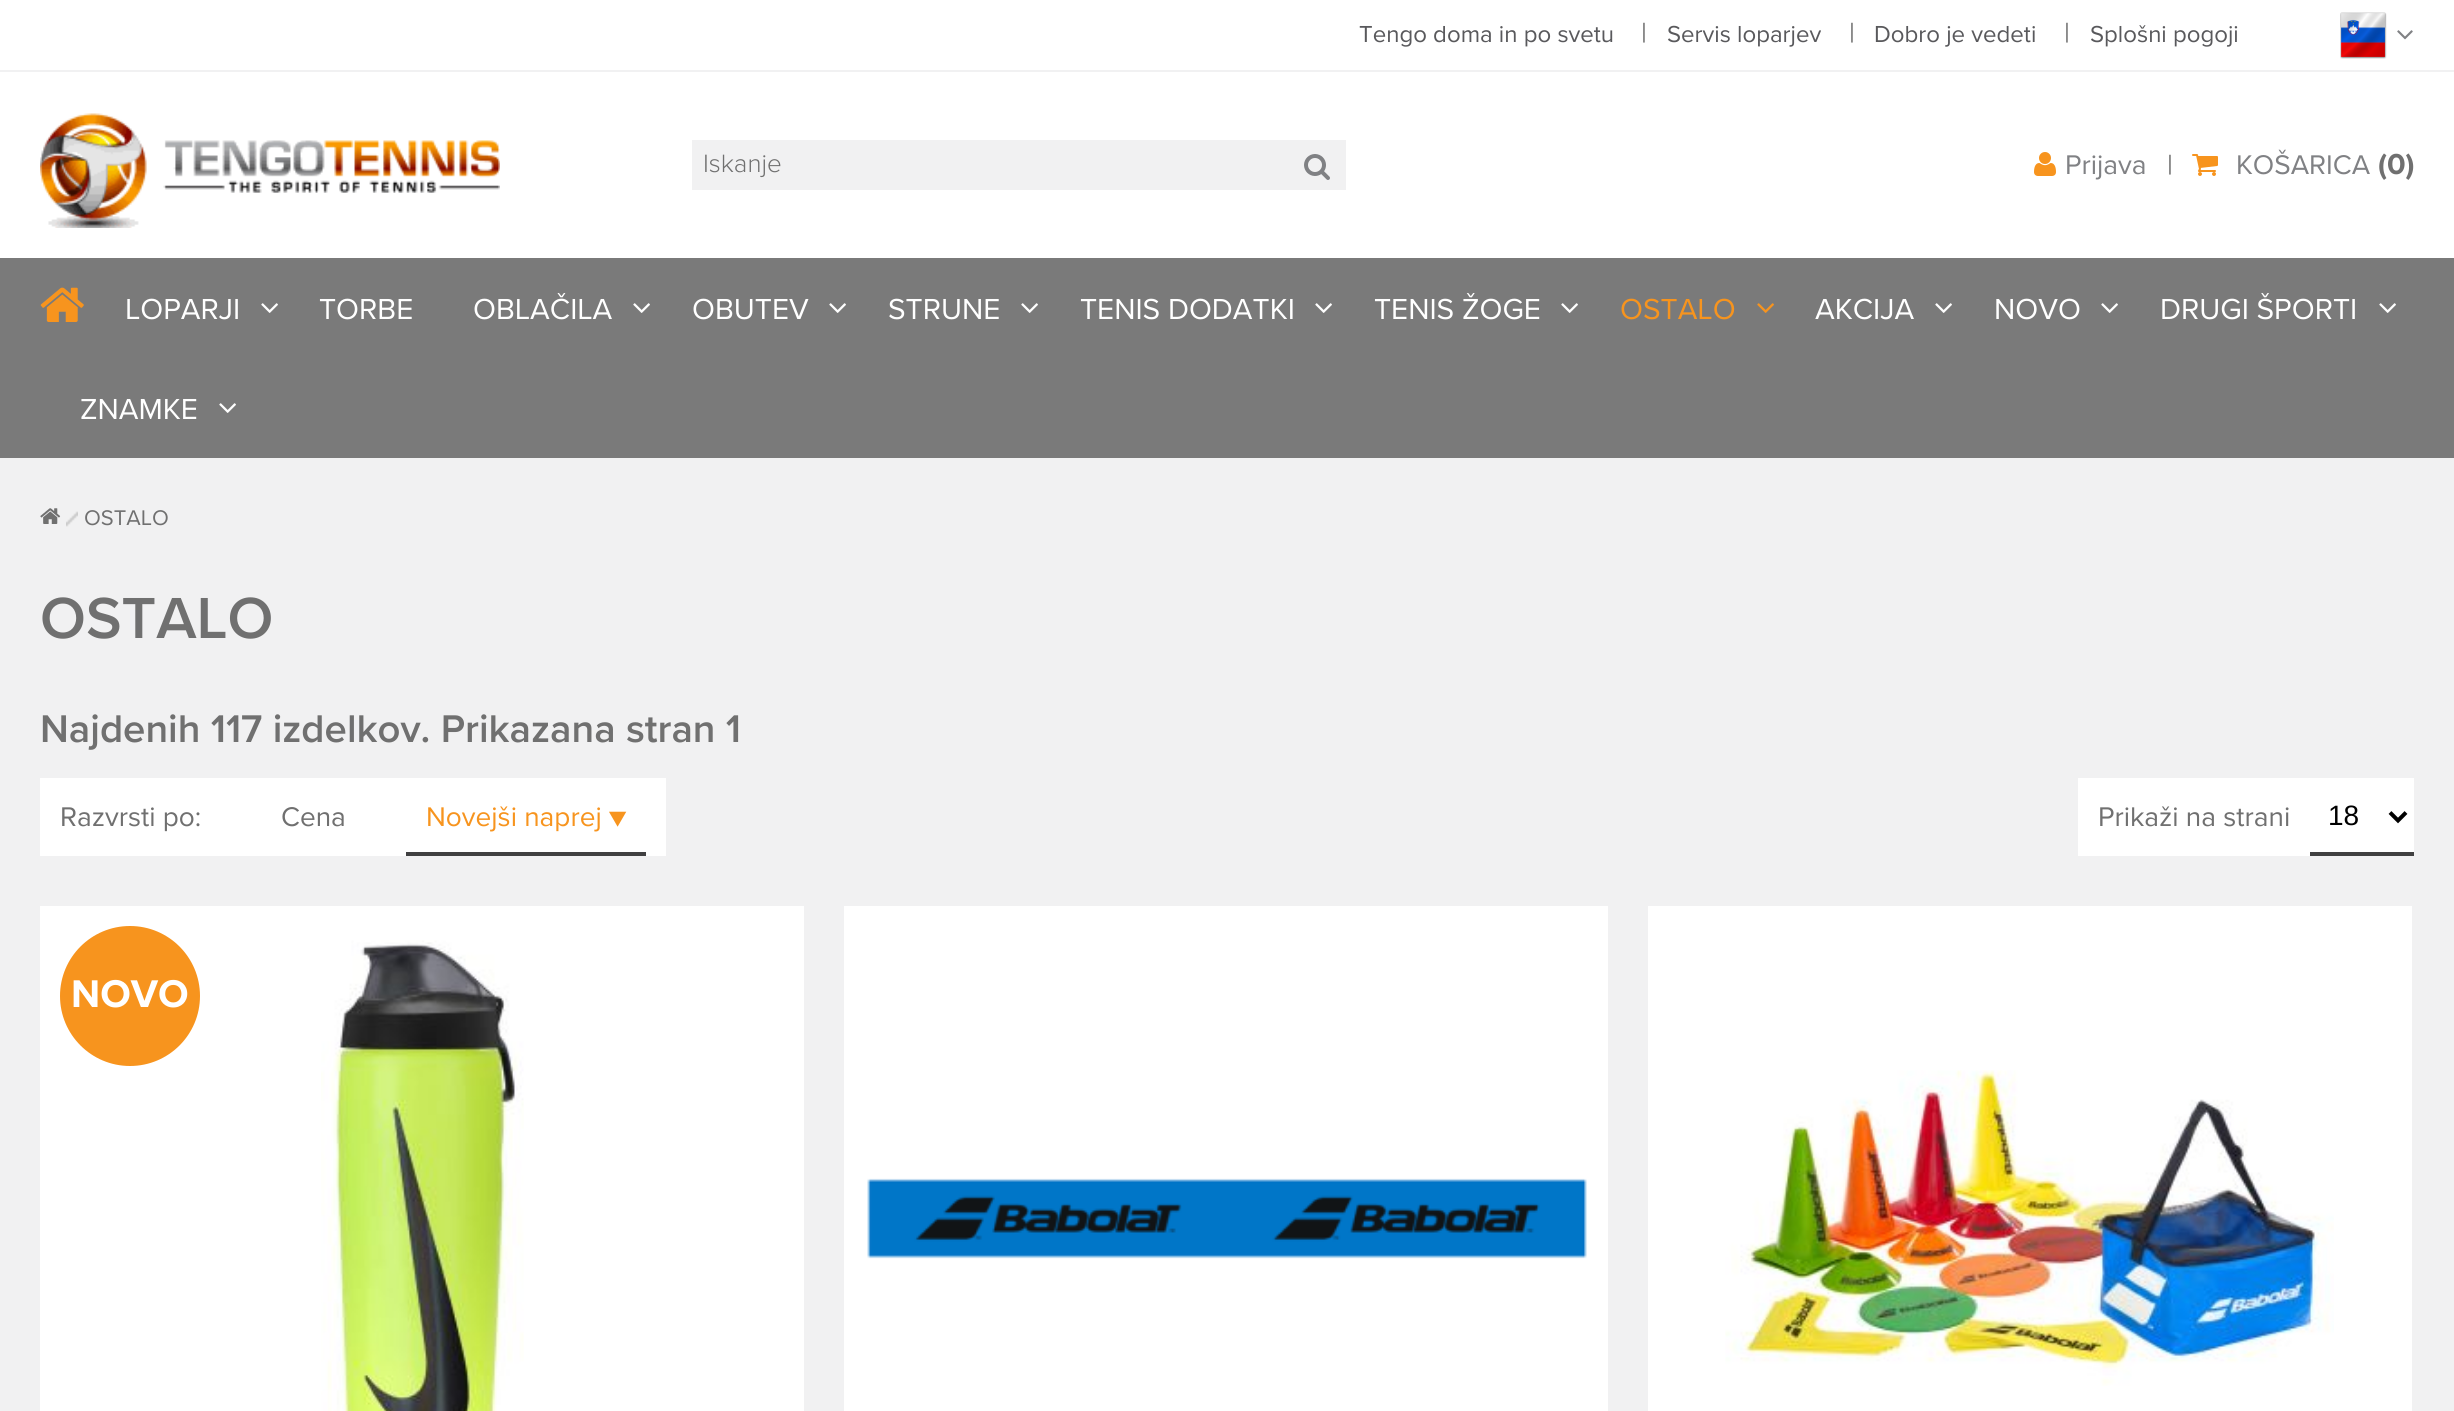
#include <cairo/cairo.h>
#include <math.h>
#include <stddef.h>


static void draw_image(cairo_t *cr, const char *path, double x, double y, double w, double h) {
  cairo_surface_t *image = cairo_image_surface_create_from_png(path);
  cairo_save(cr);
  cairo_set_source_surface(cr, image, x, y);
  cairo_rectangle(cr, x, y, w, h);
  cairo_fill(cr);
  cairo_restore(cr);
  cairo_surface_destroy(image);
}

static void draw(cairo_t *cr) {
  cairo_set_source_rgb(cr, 1, 1, 1);
  cairo_paint(cr);
  cairo_set_source_rgb(cr, 241 / 255.0, 241 / 255.0, 242 / 255.0);
  cairo_rectangle(cr, 0, 70, 2454, 2);
  cairo_fill(cr);
  draw_image(cr, "images/1.png", 2340, 12, 47, 47);
  draw_image(cr, "images/2.png", 2397, 30, 16, 10);
  draw_image(cr, "images/3.png", 40, 113, 460, 115);
  cairo_rectangle(cr, 692, 140, 654, 50);
  cairo_fill(cr);
  draw_image(cr, "images/4.png", 1304, 154, 26, 26);
  draw_image(cr, "images/5.png", 2034, 152, 22, 24);
  draw_image(cr, "images/6.png", 2192, 154, 26, 22);
  cairo_set_source_rgb(cr, 122 / 255.0, 122 / 255.0, 122 / 255.0);
  cairo_rectangle(cr, 0, 258, 2454, 200);
  cairo_fill(cr);
  draw_image(cr, "images/7.png", 40, 287, 44, 35);
  draw_image(cr, "images/8.png", 261, 303, 17, 10);
  draw_image(cr, "images/8.png", 633, 303, 17, 10);
  draw_image(cr, "images/8.png", 829, 303, 17, 10);
  draw_image(cr, "images/8.png", 1021, 303, 17, 10);
  draw_image(cr, "images/8.png", 1315, 303, 17, 10);
  draw_image(cr, "images/8.png", 1561, 303, 17, 10);
  draw_image(cr, "images/9.png", 1757, 303, 17, 10);
  draw_image(cr, "images/8.png", 1935, 303, 17, 10);
  draw_image(cr, "images/8.png", 2101, 303, 17, 10);
  draw_image(cr, "images/8.png", 2379, 303, 17, 10);
  draw_image(cr, "images/8.png", 219, 403, 17, 10);
  cairo_set_source_rgb(cr, 241 / 255.0, 241 / 255.0, 242 / 255.0);
  cairo_rectangle(cr, 0, 458, 2454, 953);
  cairo_fill(cr);
  draw_image(cr, "images/10.png", 66, 511, 12, 16);
  draw_image(cr, "images/11.png", 40, 508, 21, 16);
  cairo_set_source_rgb(cr, 1, 1, 1);
  cairo_rectangle(cr, 40, 778, 626, 78);
  cairo_fill(cr);
  cairo_set_source_rgb(cr, 64 / 255.0, 64 / 255.0, 65 / 255.0);
  cairo_rectangle(cr, 406, 852, 240, 4);
  cairo_fill(cr);
  cairo_set_source_rgb(cr, 1, 1, 1);
  cairo_rectangle(cr, 2078, 778, 232, 78);
  cairo_fill(cr);
  cairo_rectangle(cr, 2310, 778, 104, 74);
  cairo_fill(cr);
  cairo_set_source_rgb(cr, 64 / 255.0, 64 / 255.0, 65 / 255.0);
  cairo_rectangle(cr, 2310, 852, 104, 4);
  cairo_fill(cr);
  cairo_new_path(cr);
  cairo_move_to(cr, 2390, 812.5);
  cairo_line_to(cr, 2398, 820.5);
  cairo_line_to(cr, 2406, 812.5);
  cairo_set_source_rgb(cr, 0, 0, 0);
  cairo_set_line_width(cr, 4);
  cairo_stroke(cr);
  cairo_set_source_rgb(cr, 1, 1, 1);
  cairo_rectangle(cr, 40, 906, 764, 505);
  cairo_fill(cr);
  cairo_set_source_rgb(cr, 247 / 255.0, 148 / 255.0, 30 / 255.0);
  cairo_arc(cr, 130, 996, 70, 0, 2 * M_PI);
  cairo_fill(cr);
  draw_image(cr, "images/12.png", 321, 940, 203, 471);
  cairo_set_source_rgb(cr, 1, 1, 1);
  cairo_rectangle(cr, 844, 906, 764, 505);
  cairo_fill(cr);
  draw_image(cr, "images/13.png", 867, 1178, 720, 81);
  cairo_rectangle(cr, 1648, 906, 764, 505);
  cairo_fill(cr);
  draw_image(cr, "images/14.png", 1725, 1070, 609, 316);
  cairo_select_font_face(cr, "Proxima Nova", CAIRO_FONT_SLANT_NORMAL, CAIRO_FONT_WEIGHT_NORMAL);
  cairo_set_font_size(cr, 24);
  cairo_set_source_rgb(cr, 89 / 255.0, 89 / 255.0, 92 / 255.0);
  cairo_move_to(cr, 1359, 42);
  cairo_show_text(cr, "Tengo doma in po svetu");
  cairo_set_font_size(cr, 28);
  cairo_set_source_rgb(cr, 112 / 255.0, 112 / 255.0, 112 / 255.0);
  cairo_move_to(cr, 1641, 42);
  cairo_show_text(cr, "|");
  cairo_set_font_size(cr, 24);
  cairo_set_source_rgb(cr, 89 / 255.0, 89 / 255.0, 92 / 255.0);
  cairo_move_to(cr, 1667, 42);
  cairo_show_text(cr, "Servis loparjev");
  cairo_set_font_size(cr, 28);
  cairo_set_source_rgb(cr, 112 / 255.0, 112 / 255.0, 112 / 255.0);
  cairo_move_to(cr, 1849, 42);
  cairo_show_text(cr, "|");
  cairo_set_font_size(cr, 24);
  cairo_set_source_rgb(cr, 89 / 255.0, 89 / 255.0, 92 / 255.0);
  cairo_move_to(cr, 1874, 42);
  cairo_show_text(cr, "Dobro je vedeti");
  cairo_set_font_size(cr, 28);
  cairo_set_source_rgb(cr, 112 / 255.0, 112 / 255.0, 112 / 255.0);
  cairo_move_to(cr, 2064, 42);
  cairo_show_text(cr, "|");
  cairo_set_font_size(cr, 24);
  cairo_set_source_rgb(cr, 89 / 255.0, 89 / 255.0, 92 / 255.0);
  cairo_move_to(cr, 2090, 42);
  cairo_show_text(cr, "Splošni pogoji");
  cairo_select_font_face(cr, "Proxima Nova Light", CAIRO_FONT_SLANT_NORMAL, CAIRO_FONT_WEIGHT_NORMAL);
  cairo_set_font_size(cr, 26);
  cairo_set_source_rgb(cr, 112 / 255.0, 112 / 255.0, 112 / 255.0);
  cairo_move_to(cr, 703, 172);
  cairo_show_text(cr, "Iskanje");
  cairo_select_font_face(cr, "Proxima Nova", CAIRO_FONT_SLANT_NORMAL, CAIRO_FONT_WEIGHT_NORMAL);
  cairo_set_font_size(cr, 28);
  cairo_set_source_rgb(cr, 128 / 255.0, 129 / 255.0, 132 / 255.0);
  cairo_move_to(cr, 2065, 174);
  cairo_show_text(cr, "Prijava");
  cairo_set_source_rgb(cr, 112 / 255.0, 112 / 255.0, 112 / 255.0);
  cairo_move_to(cr, 2167, 174);
  cairo_show_text(cr, "|");
  cairo_set_source_rgb(cr, 128 / 255.0, 129 / 255.0, 132 / 255.0);
  cairo_move_to(cr, 2236, 174);
  cairo_show_text(cr, "KOŠARICA");
  cairo_select_font_face(cr, "Proxima Nova", CAIRO_FONT_SLANT_NORMAL, CAIRO_FONT_WEIGHT_BOLD);
  cairo_set_font_size(cr, 30);
  cairo_set_source_rgb(cr, 112 / 255.0, 112 / 255.0, 112 / 255.0);
  cairo_move_to(cr, 2378, 174);
  cairo_show_text(cr, "(0)");
  cairo_select_font_face(cr, "Proxima Nova", CAIRO_FONT_SLANT_NORMAL, CAIRO_FONT_WEIGHT_NORMAL);
  cairo_set_source_rgb(cr, 1, 1, 1);
  cairo_move_to(cr, 125, 319);
  cairo_show_text(cr, "LOPARJI");
  cairo_move_to(cr, 319, 319);
  cairo_show_text(cr, "TORBE");
  cairo_move_to(cr, 473, 319);
  cairo_show_text(cr, "OBLAČILA");
  cairo_move_to(cr, 692, 319);
  cairo_show_text(cr, "OBUTEV");
  cairo_move_to(cr, 888, 319);
  cairo_show_text(cr, "STRUNE");
  cairo_move_to(cr, 1080, 319);
  cairo_show_text(cr, "TENIS DODATKI");
  cairo_move_to(cr, 1374, 319);
  cairo_show_text(cr, "TENIS ŽOGE");
  cairo_set_source_rgb(cr, 247 / 255.0, 148 / 255.0, 30 / 255.0);
  cairo_move_to(cr, 1620, 319);
  cairo_show_text(cr, "OSTALO");
  cairo_set_source_rgb(cr, 1, 1, 1);
  cairo_move_to(cr, 1815, 319);
  cairo_show_text(cr, "AKCIJA");
  cairo_move_to(cr, 1994, 319);
  cairo_show_text(cr, "NOVO");
  cairo_move_to(cr, 2160, 319);
  cairo_show_text(cr, "DRUGI ŠPORTI");
  cairo_move_to(cr, 80, 419);
  cairo_show_text(cr, "ZNAMKE");
  cairo_set_font_size(cr, 22);
  cairo_set_source_rgb(cr, 112 / 255.0, 112 / 255.0, 112 / 255.0);
  cairo_move_to(cr, 84, 525);
  cairo_show_text(cr, "OSTALO");
  cairo_select_font_face(cr, "Proxima Nova SemiBold", CAIRO_FONT_SLANT_NORMAL, CAIRO_FONT_WEIGHT_NORMAL);
  cairo_set_font_size(cr, 60);
  cairo_move_to(cr, 40, 638);
  cairo_show_text(cr, "OSTALO");
  cairo_set_font_size(cr, 40);
  cairo_move_to(cr, 40, 742);
  cairo_show_text(cr, "Najdenih 117 izdelkov. Prikazana stran 1");
  cairo_select_font_face(cr, "Proxima Nova", CAIRO_FONT_SLANT_NORMAL, CAIRO_FONT_WEIGHT_NORMAL);
  cairo_set_font_size(cr, 28);
  cairo_move_to(cr, 60, 826);
  cairo_show_text(cr, "Razvrsti po:");
  cairo_move_to(cr, 281, 826);
  cairo_show_text(cr, "Cena");
  cairo_set_source_rgb(cr, 247 / 255.0, 148 / 255.0, 30 / 255.0);
  cairo_move_to(cr, 426, 826);
  cairo_show_text(cr, "Novejši naprej ▼");
  cairo_set_source_rgb(cr, 112 / 255.0, 112 / 255.0, 112 / 255.0);
  cairo_move_to(cr, 2098, 826);
  cairo_show_text(cr, "Prikaži na strani");
  cairo_select_font_face(cr, "Liberation Sans", CAIRO_FONT_SLANT_NORMAL, CAIRO_FONT_WEIGHT_NORMAL);
  cairo_set_source_rgb(cr, 0, 0, 0);
  cairo_move_to(cr, 2328, 825);
  cairo_show_text(cr, "18");
  cairo_select_font_face(cr, "Proxima Nova", CAIRO_FONT_SLANT_NORMAL, CAIRO_FONT_WEIGHT_BOLD);
  cairo_set_font_size(cr, 40);
  cairo_set_source_rgb(cr, 1, 1, 1);
  cairo_move_to(cr, 71, 1007);
  cairo_show_text(cr, "NOVO");
}

int main(void) {
  cairo_surface_t *surface = cairo_image_surface_create(CAIRO_FORMAT_RGB24, 2454, 1411);
  cairo_t *cr = cairo_create(surface);
  cairo_font_options_t *options = cairo_font_options_create();
  cairo_font_options_set_hint_metrics(options, CAIRO_HINT_METRICS_OFF);
  cairo_font_options_set_hint_style(options, CAIRO_HINT_STYLE_NONE);
  cairo_set_font_options(cr, options);
  cairo_set_miter_limit(cr, 4);
  draw(cr);
  cairo_surface_write_to_png(surface, "out.png");
  cairo_font_options_destroy(options);
  cairo_destroy(cr);
  cairo_surface_destroy(surface);
  return 0;
}
